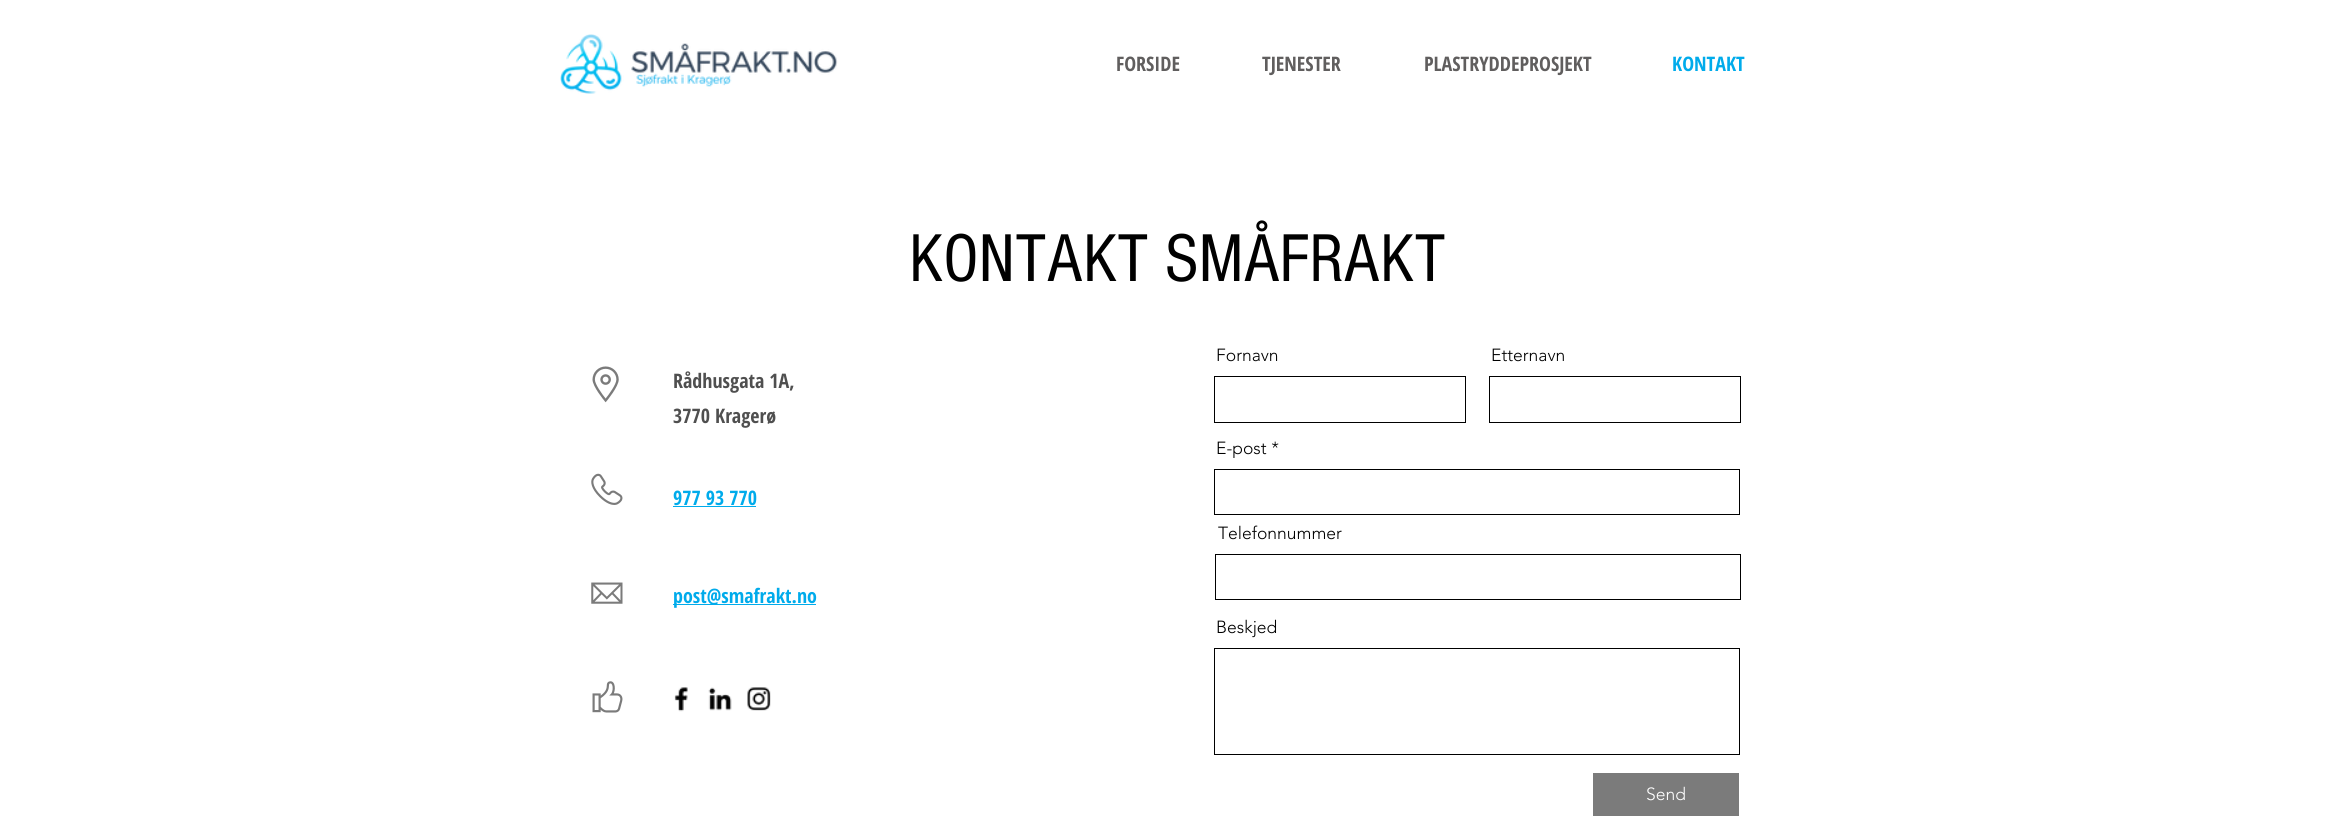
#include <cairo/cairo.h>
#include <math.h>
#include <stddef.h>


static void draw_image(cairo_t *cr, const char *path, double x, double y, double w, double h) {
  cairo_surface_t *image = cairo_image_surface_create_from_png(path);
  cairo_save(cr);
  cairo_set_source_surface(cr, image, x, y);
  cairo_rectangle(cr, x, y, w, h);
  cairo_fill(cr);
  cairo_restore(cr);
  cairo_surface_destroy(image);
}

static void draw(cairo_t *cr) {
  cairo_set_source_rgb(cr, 1, 1, 1);
  cairo_paint(cr);
  draw_image(cr, "images/1.png", 560, 34, 278, 60);
  draw_image(cr, "images/2.png", 592, 366, 27, 37);
  cairo_rectangle(cr, 1214.5, 376.5, 251, 46);
  cairo_set_source_rgb(cr, 0, 0, 0);
  cairo_set_line_width(cr, 1);
  cairo_stroke(cr);
  cairo_rectangle(cr, 1489.5, 376.5, 251, 46);
  cairo_stroke(cr);
  cairo_rectangle(cr, 1214.5, 469.5, 525, 45);
  cairo_stroke(cr);
  cairo_rectangle(cr, 1215.5, 554.5, 525, 45);
  cairo_stroke(cr);
  cairo_rectangle(cr, 1214.5, 648.5, 525, 106);
  cairo_stroke(cr);
  cairo_set_source_rgb(cr, 123 / 255.0, 123 / 255.0, 123 / 255.0);
  cairo_rectangle(cr, 1593, 773, 146, 43);
  cairo_fill(cr);
  draw_image(cr, "images/3.png", 591, 473, 32, 32);
  cairo_set_source_rgb(cr, 0, 171 / 255.0, 235 / 255.0);
  cairo_rectangle(cr, 673, 506, 83, 1);
  cairo_fill(cr);
  draw_image(cr, "images/4.png", 591, 582, 32, 22);
  cairo_rectangle(cr, 673, 604, 143, 1);
  cairo_fill(cr);
  draw_image(cr, "images/5.png", 592, 681, 31, 32);
  draw_image(cr, "images/6.png", 674, 687, 14, 25);
  draw_image(cr, "images/7.png", 708, 687, 24, 24);
  draw_image(cr, "images/8.png", 747, 687, 24, 24);
  cairo_select_font_face(cr, "Open Sans Condensed", CAIRO_FONT_SLANT_NORMAL, CAIRO_FONT_WEIGHT_BOLD);
  cairo_set_font_size(cr, 20);
  cairo_set_source_rgb(cr, 96 / 255.0, 94 / 255.0, 94 / 255.0);
  cairo_move_to(cr, 1116, 71);
  cairo_show_text(cr, "FORSIDE");
  cairo_move_to(cr, 1262, 71);
  cairo_show_text(cr, "TJENESTER");
  cairo_move_to(cr, 1424, 71);
  cairo_show_text(cr, "PLASTRYDDEPROSJEKT");
  cairo_set_source_rgb(cr, 0, 171 / 255.0, 235 / 255.0);
  cairo_move_to(cr, 1672, 71);
  cairo_show_text(cr, "KONTAKT");
  cairo_select_font_face(cr, "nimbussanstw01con", CAIRO_FONT_SLANT_NORMAL, CAIRO_FONT_WEIGHT_NORMAL);
  cairo_set_font_size(cr, 70);
  cairo_set_source_rgb(cr, 0, 0, 0);
  cairo_move_to(cr, 909, 281);
  cairo_show_text(cr, "KONTAKT SMÅFRAKT");
  cairo_select_font_face(cr, "Open Sans Condensed", CAIRO_FONT_SLANT_NORMAL, CAIRO_FONT_WEIGHT_BOLD);
  cairo_set_font_size(cr, 20);
  cairo_set_source_rgb(cr, 79 / 255.0, 79 / 255.0, 79 / 255.0);
  cairo_move_to(cr, 673, 388);
  cairo_show_text(cr, "Rådhusgata 1A,");
  cairo_move_to(cr, 673, 423);
  cairo_show_text(cr, "3770 Kragerø");
  cairo_select_font_face(cr, "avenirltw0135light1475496 Light", CAIRO_FONT_SLANT_NORMAL, CAIRO_FONT_WEIGHT_NORMAL);
  cairo_set_font_size(cr, 17.5);
  cairo_set_source_rgb(cr, 0, 0, 0);
  cairo_move_to(cr, 1216, 361);
  cairo_show_text(cr, "Fornavn");
  cairo_move_to(cr, 1491, 361);
  cairo_show_text(cr, "Etternavn");
  cairo_move_to(cr, 1216, 454);
  cairo_show_text(cr, "E-post *");
  cairo_move_to(cr, 1218, 539);
  cairo_show_text(cr, "Telefonnummer");
  cairo_move_to(cr, 1216, 633);
  cairo_show_text(cr, "Beskjed");
  cairo_set_source_rgb(cr, 1, 1, 1);
  cairo_move_to(cr, 1646, 800);
  cairo_show_text(cr, "Send");
  cairo_select_font_face(cr, "Open Sans Condensed", CAIRO_FONT_SLANT_NORMAL, CAIRO_FONT_WEIGHT_BOLD);
  cairo_set_font_size(cr, 20);
  cairo_set_source_rgb(cr, 0, 171 / 255.0, 235 / 255.0);
  cairo_move_to(cr, 673, 505);
  cairo_show_text(cr, "977 93 770");
  cairo_move_to(cr, 673, 603);
  cairo_show_text(cr, "post@smafrakt.no");
}

int main(void) {
  cairo_surface_t *surface = cairo_image_surface_create(CAIRO_FORMAT_RGB24, 2345, 816);
  cairo_t *cr = cairo_create(surface);
  cairo_font_options_t *options = cairo_font_options_create();
  cairo_font_options_set_hint_metrics(options, CAIRO_HINT_METRICS_OFF);
  cairo_font_options_set_hint_style(options, CAIRO_HINT_STYLE_NONE);
  cairo_set_font_options(cr, options);
  cairo_set_miter_limit(cr, 4);
  draw(cr);
  cairo_surface_write_to_png(surface, "out.png");
  cairo_font_options_destroy(options);
  cairo_destroy(cr);
  cairo_surface_destroy(surface);
  return 0;
}
